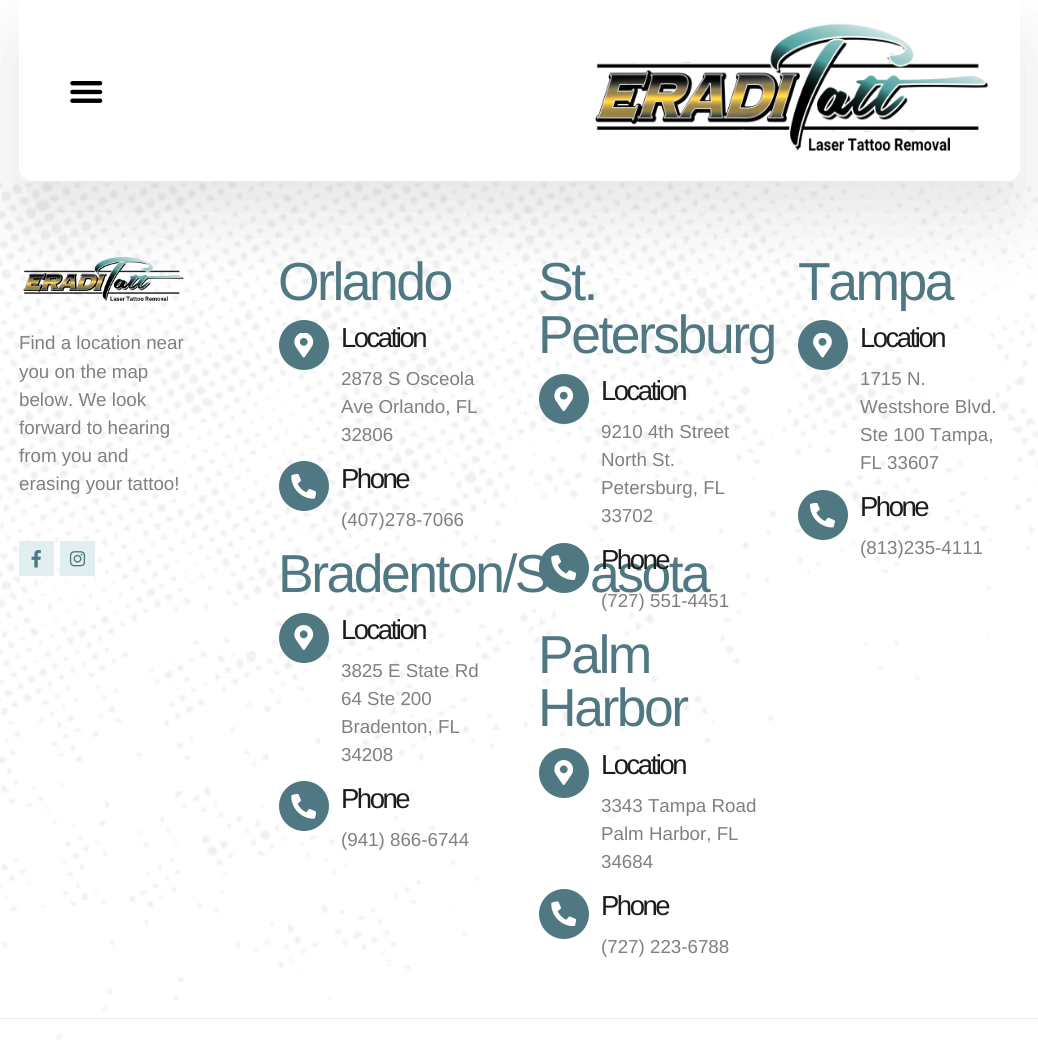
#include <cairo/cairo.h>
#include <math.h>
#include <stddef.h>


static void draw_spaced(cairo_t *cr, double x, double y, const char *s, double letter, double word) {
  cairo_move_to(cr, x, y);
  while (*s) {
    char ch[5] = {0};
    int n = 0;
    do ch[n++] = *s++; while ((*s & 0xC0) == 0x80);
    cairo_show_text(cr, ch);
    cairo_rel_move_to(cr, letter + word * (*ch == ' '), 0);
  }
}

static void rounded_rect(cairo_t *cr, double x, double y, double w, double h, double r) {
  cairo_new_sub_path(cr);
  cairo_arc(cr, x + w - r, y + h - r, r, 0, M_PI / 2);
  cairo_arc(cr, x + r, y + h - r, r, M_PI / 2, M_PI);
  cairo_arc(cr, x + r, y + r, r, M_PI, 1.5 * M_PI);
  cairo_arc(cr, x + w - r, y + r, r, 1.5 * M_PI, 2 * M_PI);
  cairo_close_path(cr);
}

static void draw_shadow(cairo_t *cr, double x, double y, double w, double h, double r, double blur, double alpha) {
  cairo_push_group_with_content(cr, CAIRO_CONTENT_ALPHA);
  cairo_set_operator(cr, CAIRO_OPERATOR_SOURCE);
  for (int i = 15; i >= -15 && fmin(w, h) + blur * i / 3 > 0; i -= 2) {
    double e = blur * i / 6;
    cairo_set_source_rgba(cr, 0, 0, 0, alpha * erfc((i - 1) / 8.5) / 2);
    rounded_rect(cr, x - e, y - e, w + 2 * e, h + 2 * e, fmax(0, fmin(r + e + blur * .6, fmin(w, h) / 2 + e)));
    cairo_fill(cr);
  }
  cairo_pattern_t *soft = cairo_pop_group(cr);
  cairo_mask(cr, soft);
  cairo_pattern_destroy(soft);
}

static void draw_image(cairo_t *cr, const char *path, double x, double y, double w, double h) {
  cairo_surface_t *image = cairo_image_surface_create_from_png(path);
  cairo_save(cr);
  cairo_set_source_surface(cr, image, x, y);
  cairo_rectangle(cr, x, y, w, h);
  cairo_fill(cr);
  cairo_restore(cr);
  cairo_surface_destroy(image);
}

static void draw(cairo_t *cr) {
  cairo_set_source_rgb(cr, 1, 1, 1);
  cairo_paint(cr);
  draw_image(cr, "images/3.png", 0, 182, 1038, 859);
  cairo_set_source_rgb(cr, 80 / 255.0, 120 / 255.0, 130 / 255.0);
  cairo_arc(cr, 304, 345, 25, 0, 2 * M_PI);
  cairo_fill(cr);
  draw_image(cr, "images/7.png", 23, 256, 161, 45);
  cairo_arc(cr, 823, 345, 25, 0, 2 * M_PI);
  cairo_fill(cr);
  cairo_set_source_rgb(cr, 0, 0, 0);
  draw_shadow(cr, 19, 38, 1001, 181, 13, 37.5, 0.1);
  cairo_set_source_rgb(cr, 1, 1, 1);
  cairo_new_path(cr);
  cairo_move_to(cr, 19, 0);
  cairo_line_to(cr, 1020, 0);
  cairo_line_to(cr, 1020, 168);
  cairo_curve_to(cr, 1020, 175, 1014, 181, 1007, 181);
  cairo_line_to(cr, 32, 181);
  cairo_curve_to(cr, 25, 181, 19, 175, 19, 168);
  cairo_close_path(cr);
  cairo_fill(cr);
  draw_image(cr, "images/1.png", 70, 81, 33, 22);
  draw_image(cr, "images/2.png", 595, 23, 394, 128);
  cairo_set_source_rgb(cr, 225 / 255.0, 239 / 255.0, 240 / 255.0);
  cairo_rectangle(cr, 0, 1018, 1038, 1);
  cairo_fill(cr);
  draw_image(cr, "images/4.png", 294, 333, 20, 25);
  cairo_set_source_rgb(cr, 80 / 255.0, 120 / 255.0, 130 / 255.0);
  cairo_arc(cr, 304, 486, 25, 0, 2 * M_PI);
  cairo_fill(cr);
  draw_image(cr, "images/5.png", 291, 474, 25, 25);
  cairo_arc(cr, 304, 638, 25, 0, 2 * M_PI);
  cairo_fill(cr);
  draw_image(cr, "images/6.png", 294, 625, 20, 25);
  cairo_arc(cr, 304, 806, 25, 0, 2 * M_PI);
  cairo_fill(cr);
  draw_image(cr, "images/5.png", 291, 794, 25, 25);
  cairo_set_source_rgb(cr, 225 / 255.0, 239 / 255.0, 240 / 255.0);
  cairo_rectangle(cr, 19, 541, 35, 35);
  cairo_fill(cr);
  draw_image(cr, "images/8.png", 31, 550, 10, 18);
  cairo_rectangle(cr, 60, 541, 35, 35);
  cairo_fill(cr);
  draw_image(cr, "images/9.png", 69, 551, 17, 16);
  cairo_set_source_rgb(cr, 80 / 255.0, 120 / 255.0, 130 / 255.0);
  cairo_arc(cr, 564, 399, 25, 0, 2 * M_PI);
  cairo_fill(cr);
  draw_image(cr, "images/10.png", 554, 386, 20, 25);
  cairo_arc(cr, 564, 568, 25, 0, 2 * M_PI);
  cairo_fill(cr);
  draw_image(cr, "images/11.png", 551, 555, 25, 25);
  cairo_arc(cr, 564, 773, 25, 0, 2 * M_PI);
  cairo_fill(cr);
  draw_image(cr, "images/6.png", 554, 760, 20, 25);
  cairo_arc(cr, 564, 914, 25, 0, 2 * M_PI);
  cairo_fill(cr);
  draw_image(cr, "images/12.png", 551, 901, 25, 25);
  draw_image(cr, "images/13.png", 813, 333, 19, 25);
  cairo_arc(cr, 823, 515, 25, 0, 2 * M_PI);
  cairo_fill(cr);
  draw_image(cr, "images/14.png", 810, 503, 25, 25);
  cairo_select_font_face(cr, "Liberation Sans", CAIRO_FONT_SLANT_NORMAL, CAIRO_FONT_WEIGHT_NORMAL);
  cairo_set_font_size(cr, 53.5);
  draw_spaced(cr, 278, 300, "Orlando", -2.5, 0);
  cairo_set_font_size(cr, 27.5);
  cairo_set_source_rgb(cr, 28 / 255.0, 28 / 255.0, 28 / 255.0);
  draw_spaced(cr, 341, 347, "Location", -2.5, 0);
  cairo_set_font_size(cr, 18.75);
  cairo_set_source_rgb(cr, 128 / 255.0, 128 / 255.0, 128 / 255.0);
  cairo_move_to(cr, 341, 385);
  cairo_show_text(cr, "2878 S Osceola");
  cairo_move_to(cr, 341, 413);
  cairo_show_text(cr, "Ave Orlando, FL");
  cairo_move_to(cr, 341, 441);
  cairo_show_text(cr, "32806");
  cairo_set_font_size(cr, 27.5);
  cairo_set_source_rgb(cr, 28 / 255.0, 28 / 255.0, 28 / 255.0);
  draw_spaced(cr, 341, 488, "Phone", -2.5, 0);
  cairo_set_font_size(cr, 18.75);
  cairo_set_source_rgb(cr, 128 / 255.0, 128 / 255.0, 128 / 255.0);
  cairo_move_to(cr, 341, 526);
  cairo_show_text(cr, "(407)278-7066");
  cairo_set_font_size(cr, 53.5);
  cairo_set_source_rgb(cr, 80 / 255.0, 120 / 255.0, 130 / 255.0);
  draw_spaced(cr, 278, 592, "Bradenton/S", -2.5, 0);
  draw_spaced(cr, 590, 592, "asota", -2.5, 0);
  cairo_set_font_size(cr, 27.5);
  cairo_set_source_rgb(cr, 28 / 255.0, 28 / 255.0, 28 / 255.0);
  draw_spaced(cr, 341, 639, "Location", -2.5, 0);
  cairo_set_font_size(cr, 18.75);
  cairo_set_source_rgb(cr, 128 / 255.0, 128 / 255.0, 128 / 255.0);
  cairo_move_to(cr, 341, 677);
  cairo_show_text(cr, "3825 E State Rd");
  cairo_move_to(cr, 341, 705);
  cairo_show_text(cr, "64 Ste 200");
  cairo_move_to(cr, 341, 733);
  cairo_show_text(cr, "Bradenton, FL");
  cairo_move_to(cr, 341, 761);
  cairo_show_text(cr, "34208");
  cairo_set_font_size(cr, 27.5);
  cairo_set_source_rgb(cr, 28 / 255.0, 28 / 255.0, 28 / 255.0);
  draw_spaced(cr, 341, 808, "Phone", -2.5, 0);
  cairo_set_font_size(cr, 18.75);
  cairo_set_source_rgb(cr, 128 / 255.0, 128 / 255.0, 128 / 255.0);
  cairo_move_to(cr, 341, 846);
  cairo_show_text(cr, "(941) 866-6744");
  cairo_move_to(cr, 19, 349);
  cairo_show_text(cr, "Find a location near");
  cairo_move_to(cr, 19, 378);
  cairo_show_text(cr, "you on the map");
  cairo_move_to(cr, 19, 406);
  cairo_show_text(cr, "below. We look");
  cairo_move_to(cr, 19, 434);
  cairo_show_text(cr, "forward to hearing");
  cairo_move_to(cr, 19, 462);
  cairo_show_text(cr, "from you and");
  cairo_move_to(cr, 19, 490);
  cairo_show_text(cr, "erasing your tattoo!");
  cairo_set_font_size(cr, 53.5);
  cairo_set_source_rgb(cr, 80 / 255.0, 120 / 255.0, 130 / 255.0);
  draw_spaced(cr, 538, 300, "St.", -2.5, 0);
  draw_spaced(cr, 538, 353, "Petersburg", -2.5, 0);
  cairo_set_font_size(cr, 27.5);
  cairo_set_source_rgb(cr, 28 / 255.0, 28 / 255.0, 28 / 255.0);
  draw_spaced(cr, 601, 400, "Location", -2.5, 0);
  cairo_set_font_size(cr, 18.75);
  cairo_set_source_rgb(cr, 128 / 255.0, 128 / 255.0, 128 / 255.0);
  cairo_move_to(cr, 601, 438);
  cairo_show_text(cr, "9210 4th Street");
  cairo_move_to(cr, 601, 466);
  cairo_show_text(cr, "North St.");
  cairo_move_to(cr, 601, 494);
  cairo_show_text(cr, "Petersburg, FL");
  cairo_move_to(cr, 601, 522);
  cairo_show_text(cr, "33702");
  cairo_set_font_size(cr, 27.5);
  cairo_set_source_rgb(cr, 28 / 255.0, 28 / 255.0, 28 / 255.0);
  draw_spaced(cr, 601, 569, "Phone", -2.5, 0);
  cairo_set_font_size(cr, 18.75);
  cairo_set_source_rgb(cr, 128 / 255.0, 128 / 255.0, 128 / 255.0);
  cairo_move_to(cr, 601, 607);
  cairo_show_text(cr, "(727) 551-4451");
  cairo_set_font_size(cr, 53.5);
  cairo_set_source_rgb(cr, 80 / 255.0, 120 / 255.0, 130 / 255.0);
  draw_spaced(cr, 538, 673, "Palm", -2.5, 0);
  draw_spaced(cr, 538, 726, "Harbor", -2.5, 0);
  cairo_set_font_size(cr, 27.5);
  cairo_set_source_rgb(cr, 28 / 255.0, 28 / 255.0, 28 / 255.0);
  draw_spaced(cr, 601, 774, "Location", -2.5, 0);
  cairo_set_font_size(cr, 18.75);
  cairo_set_source_rgb(cr, 128 / 255.0, 128 / 255.0, 128 / 255.0);
  cairo_move_to(cr, 601, 812);
  cairo_show_text(cr, "3343 Tampa Road");
  cairo_move_to(cr, 601, 840);
  cairo_show_text(cr, "Palm Harbor, FL");
  cairo_move_to(cr, 601, 868);
  cairo_show_text(cr, "34684");
  cairo_set_font_size(cr, 27.5);
  cairo_set_source_rgb(cr, 28 / 255.0, 28 / 255.0, 28 / 255.0);
  draw_spaced(cr, 601, 915, "Phone", -2.5, 0);
  cairo_set_font_size(cr, 18.75);
  cairo_set_source_rgb(cr, 128 / 255.0, 128 / 255.0, 128 / 255.0);
  cairo_move_to(cr, 601, 953);
  cairo_show_text(cr, "(727) 223-6788");
  cairo_set_font_size(cr, 53.5);
  cairo_set_source_rgb(cr, 80 / 255.0, 120 / 255.0, 130 / 255.0);
  draw_spaced(cr, 798, 300, "Tampa", -2.5, 0);
  cairo_set_font_size(cr, 27.5);
  cairo_set_source_rgb(cr, 28 / 255.0, 28 / 255.0, 28 / 255.0);
  draw_spaced(cr, 860, 347, "Location", -2.5, 0);
  cairo_set_font_size(cr, 18.75);
  cairo_set_source_rgb(cr, 128 / 255.0, 128 / 255.0, 128 / 255.0);
  cairo_move_to(cr, 860, 385);
  cairo_show_text(cr, "1715 N.");
  cairo_move_to(cr, 860, 413);
  cairo_show_text(cr, "Westshore Blvd.");
  cairo_move_to(cr, 860, 441);
  cairo_show_text(cr, "Ste 100 Tampa,");
  cairo_move_to(cr, 860, 469);
  cairo_show_text(cr, "FL 33607");
  cairo_set_font_size(cr, 27.5);
  cairo_set_source_rgb(cr, 28 / 255.0, 28 / 255.0, 28 / 255.0);
  draw_spaced(cr, 860, 516, "Phone", -2.5, 0);
  cairo_set_font_size(cr, 18.75);
  cairo_set_source_rgb(cr, 128 / 255.0, 128 / 255.0, 128 / 255.0);
  cairo_move_to(cr, 860, 554);
  cairo_show_text(cr, "(813)235-4111");
}

int main(void) {
  cairo_surface_t *surface = cairo_image_surface_create(CAIRO_FORMAT_RGB24, 1038, 1052);
  cairo_t *cr = cairo_create(surface);
  cairo_font_options_t *options = cairo_font_options_create();
  cairo_font_options_set_hint_metrics(options, CAIRO_HINT_METRICS_OFF);
  cairo_font_options_set_hint_style(options, CAIRO_HINT_STYLE_NONE);
  cairo_set_font_options(cr, options);
  cairo_set_miter_limit(cr, 4);
  draw(cr);
  cairo_surface_write_to_png(surface, "out.png");
  cairo_font_options_destroy(options);
  cairo_destroy(cr);
  cairo_surface_destroy(surface);
  return 0;
}
